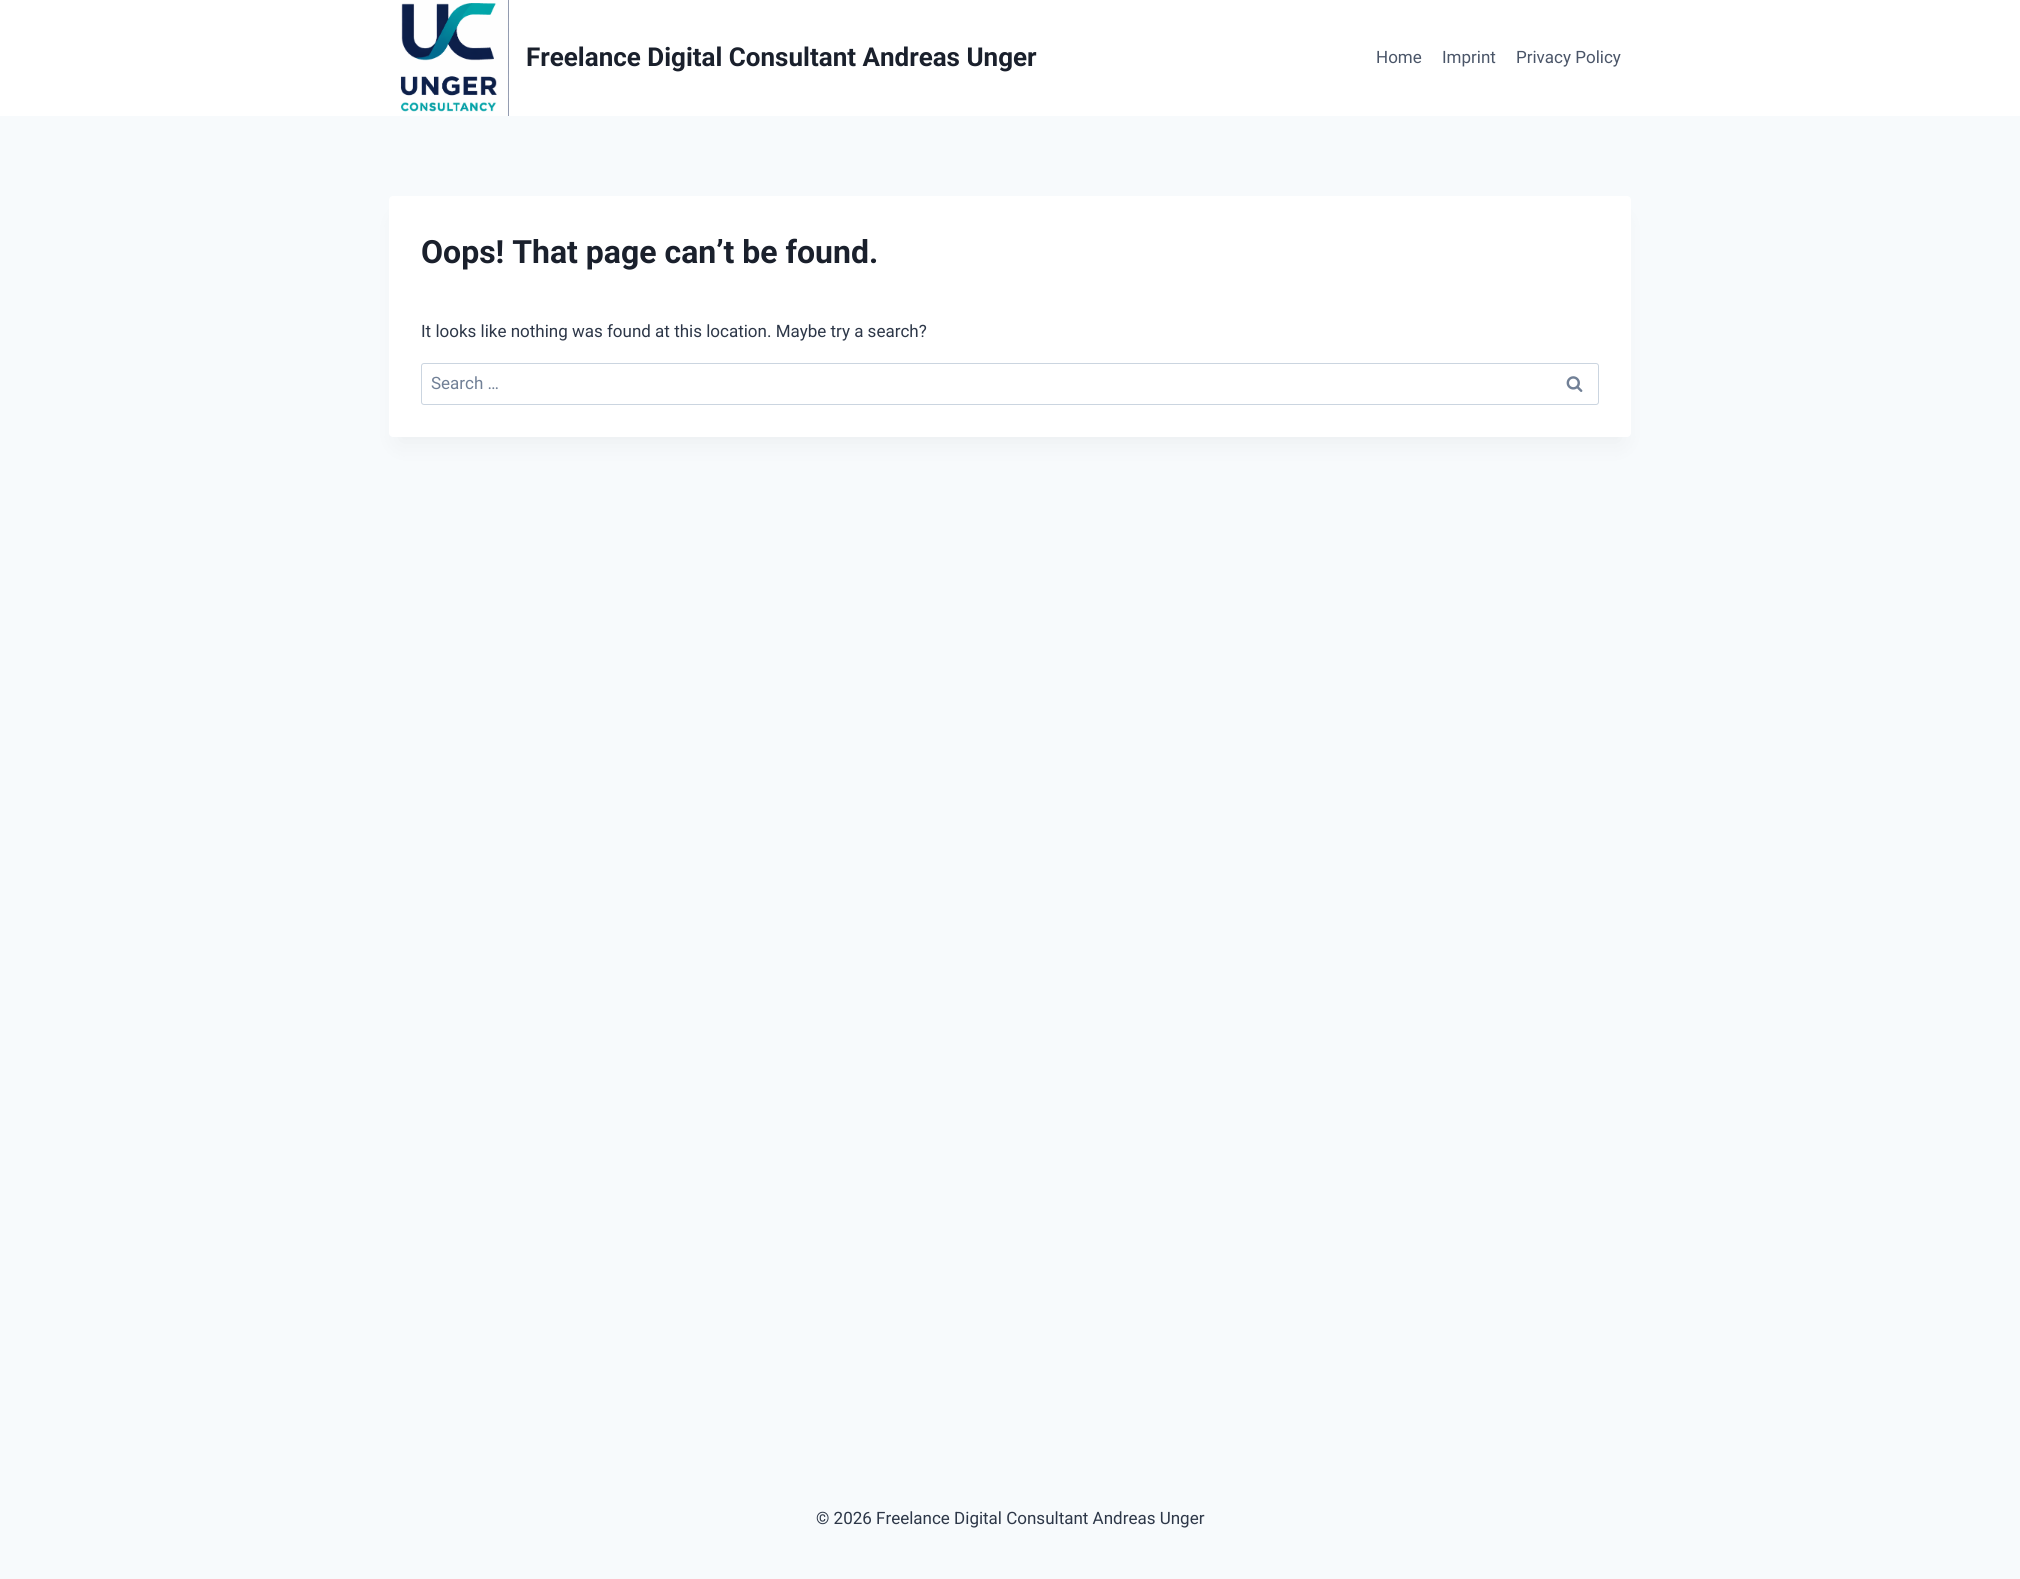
#include <cairo/cairo.h>
#include <math.h>
#include <stddef.h>


static void rounded_rect(cairo_t *cr, double x, double y, double w, double h, double r) {
  cairo_new_sub_path(cr);
  cairo_arc(cr, x + w - r, y + h - r, r, 0, M_PI / 2);
  cairo_arc(cr, x + r, y + h - r, r, M_PI / 2, M_PI);
  cairo_arc(cr, x + r, y + r, r, M_PI, 1.5 * M_PI);
  cairo_arc(cr, x + w - r, y + r, r, 1.5 * M_PI, 2 * M_PI);
  cairo_close_path(cr);
}

static void draw_shadow(cairo_t *cr, double x, double y, double w, double h, double r, double blur, double alpha) {
  cairo_push_group_with_content(cr, CAIRO_CONTENT_ALPHA);
  cairo_set_operator(cr, CAIRO_OPERATOR_SOURCE);
  for (int i = 15; i >= -15 && fmin(w, h) + blur * i / 3 > 0; i -= 2) {
    double e = blur * i / 6;
    cairo_set_source_rgba(cr, 0, 0, 0, alpha * erfc((i - 1) / 8.5) / 2);
    rounded_rect(cr, x - e, y - e, w + 2 * e, h + 2 * e, fmax(0, fmin(r + e + blur * .6, fmin(w, h) / 2 + e)));
    cairo_fill(cr);
  }
  cairo_pattern_t *soft = cairo_pop_group(cr);
  cairo_mask(cr, soft);
  cairo_pattern_destroy(soft);
}

static void draw_image(cairo_t *cr, const char *path, double x, double y, double w, double h) {
  cairo_surface_t *image = cairo_image_surface_create_from_png(path);
  cairo_save(cr);
  cairo_set_source_surface(cr, image, x, y);
  cairo_rectangle(cr, x, y, w, h);
  cairo_fill(cr);
  cairo_restore(cr);
  cairo_surface_destroy(image);
}

static void draw(cairo_t *cr) {
  cairo_set_source_rgb(cr, 247 / 255.0, 250 / 255.0, 252 / 255.0);
  cairo_paint(cr);
  cairo_set_source_rgb(cr, 1, 1, 1);
  cairo_rectangle(cr, 0, 0, 2020, 116);
  cairo_fill(cr);
  draw_image(cr, "images/1.png", 400, 0, 109, 116);
  cairo_set_source_rgb(cr, 0, 0, 0);
  draw_shadow(cr, 399, 221, 1222, 221, 0, 12.5, 0.05);
  cairo_set_source_rgb(cr, 1, 1, 1);
  rounded_rect(cr, 389, 196, 1242, 241, 4);
  cairo_fill(cr);
  rounded_rect(cr, 421.5, 363.5, 1177, 41, 2.5);
  cairo_set_source_rgb(cr, 203 / 255.0, 213 / 255.0, 224 / 255.0);
  cairo_set_line_width(cr, 1);
  cairo_stroke(cr);
  draw_image(cr, "images/2.png", 1566, 376, 17, 16);
  cairo_select_font_face(cr, "Roboto", CAIRO_FONT_SLANT_NORMAL, CAIRO_FONT_WEIGHT_BOLD);
  cairo_set_font_size(cr, 26);
  cairo_set_source_rgb(cr, 26 / 255.0, 32 / 255.0, 44 / 255.0);
  cairo_move_to(cr, 526, 66);
  cairo_show_text(cr, "Freelance Digital Consultant Andreas Unger");
  cairo_select_font_face(cr, "Roboto", CAIRO_FONT_SLANT_NORMAL, CAIRO_FONT_WEIGHT_NORMAL);
  cairo_set_font_size(cr, 17);
  cairo_set_source_rgb(cr, 74 / 255.0, 85 / 255.0, 104 / 255.0);
  cairo_move_to(cr, 1376, 63);
  cairo_show_text(cr, "Home");
  cairo_move_to(cr, 1442, 63);
  cairo_show_text(cr, "Imprint");
  cairo_move_to(cr, 1516, 63);
  cairo_show_text(cr, "Privacy Policy");
  cairo_select_font_face(cr, "Roboto", CAIRO_FONT_SLANT_NORMAL, CAIRO_FONT_WEIGHT_BOLD);
  cairo_set_font_size(cr, 32);
  cairo_set_source_rgb(cr, 26 / 255.0, 32 / 255.0, 44 / 255.0);
  cairo_move_to(cr, 421, 263);
  cairo_show_text(cr, "Oops! That page can’t be found.");
  cairo_select_font_face(cr, "Roboto", CAIRO_FONT_SLANT_NORMAL, CAIRO_FONT_WEIGHT_NORMAL);
  cairo_set_font_size(cr, 17);
  cairo_set_source_rgb(cr, 45 / 255.0, 55 / 255.0, 72 / 255.0);
  cairo_move_to(cr, 421, 337);
  cairo_show_text(cr, "It looks like nothing was found at this location. Maybe try a search?");
  cairo_set_source_rgb(cr, 113 / 255.0, 128 / 255.0, 150 / 255.0);
  cairo_move_to(cr, 431, 389);
  cairo_show_text(cr, "Search …");
  cairo_set_source_rgb(cr, 45 / 255.0, 55 / 255.0, 72 / 255.0);
  cairo_move_to(cr, 816, 1524);
  cairo_show_text(cr, "© 2026 Freelance Digital Consultant Andreas Unger");
}

int main(void) {
  cairo_surface_t *surface = cairo_image_surface_create(CAIRO_FORMAT_RGB24, 2020, 1579);
  cairo_t *cr = cairo_create(surface);
  cairo_font_options_t *options = cairo_font_options_create();
  cairo_font_options_set_hint_metrics(options, CAIRO_HINT_METRICS_OFF);
  cairo_font_options_set_hint_style(options, CAIRO_HINT_STYLE_NONE);
  cairo_set_font_options(cr, options);
  cairo_set_miter_limit(cr, 4);
  draw(cr);
  cairo_surface_write_to_png(surface, "out.png");
  cairo_font_options_destroy(options);
  cairo_destroy(cr);
  cairo_surface_destroy(surface);
  return 0;
}
